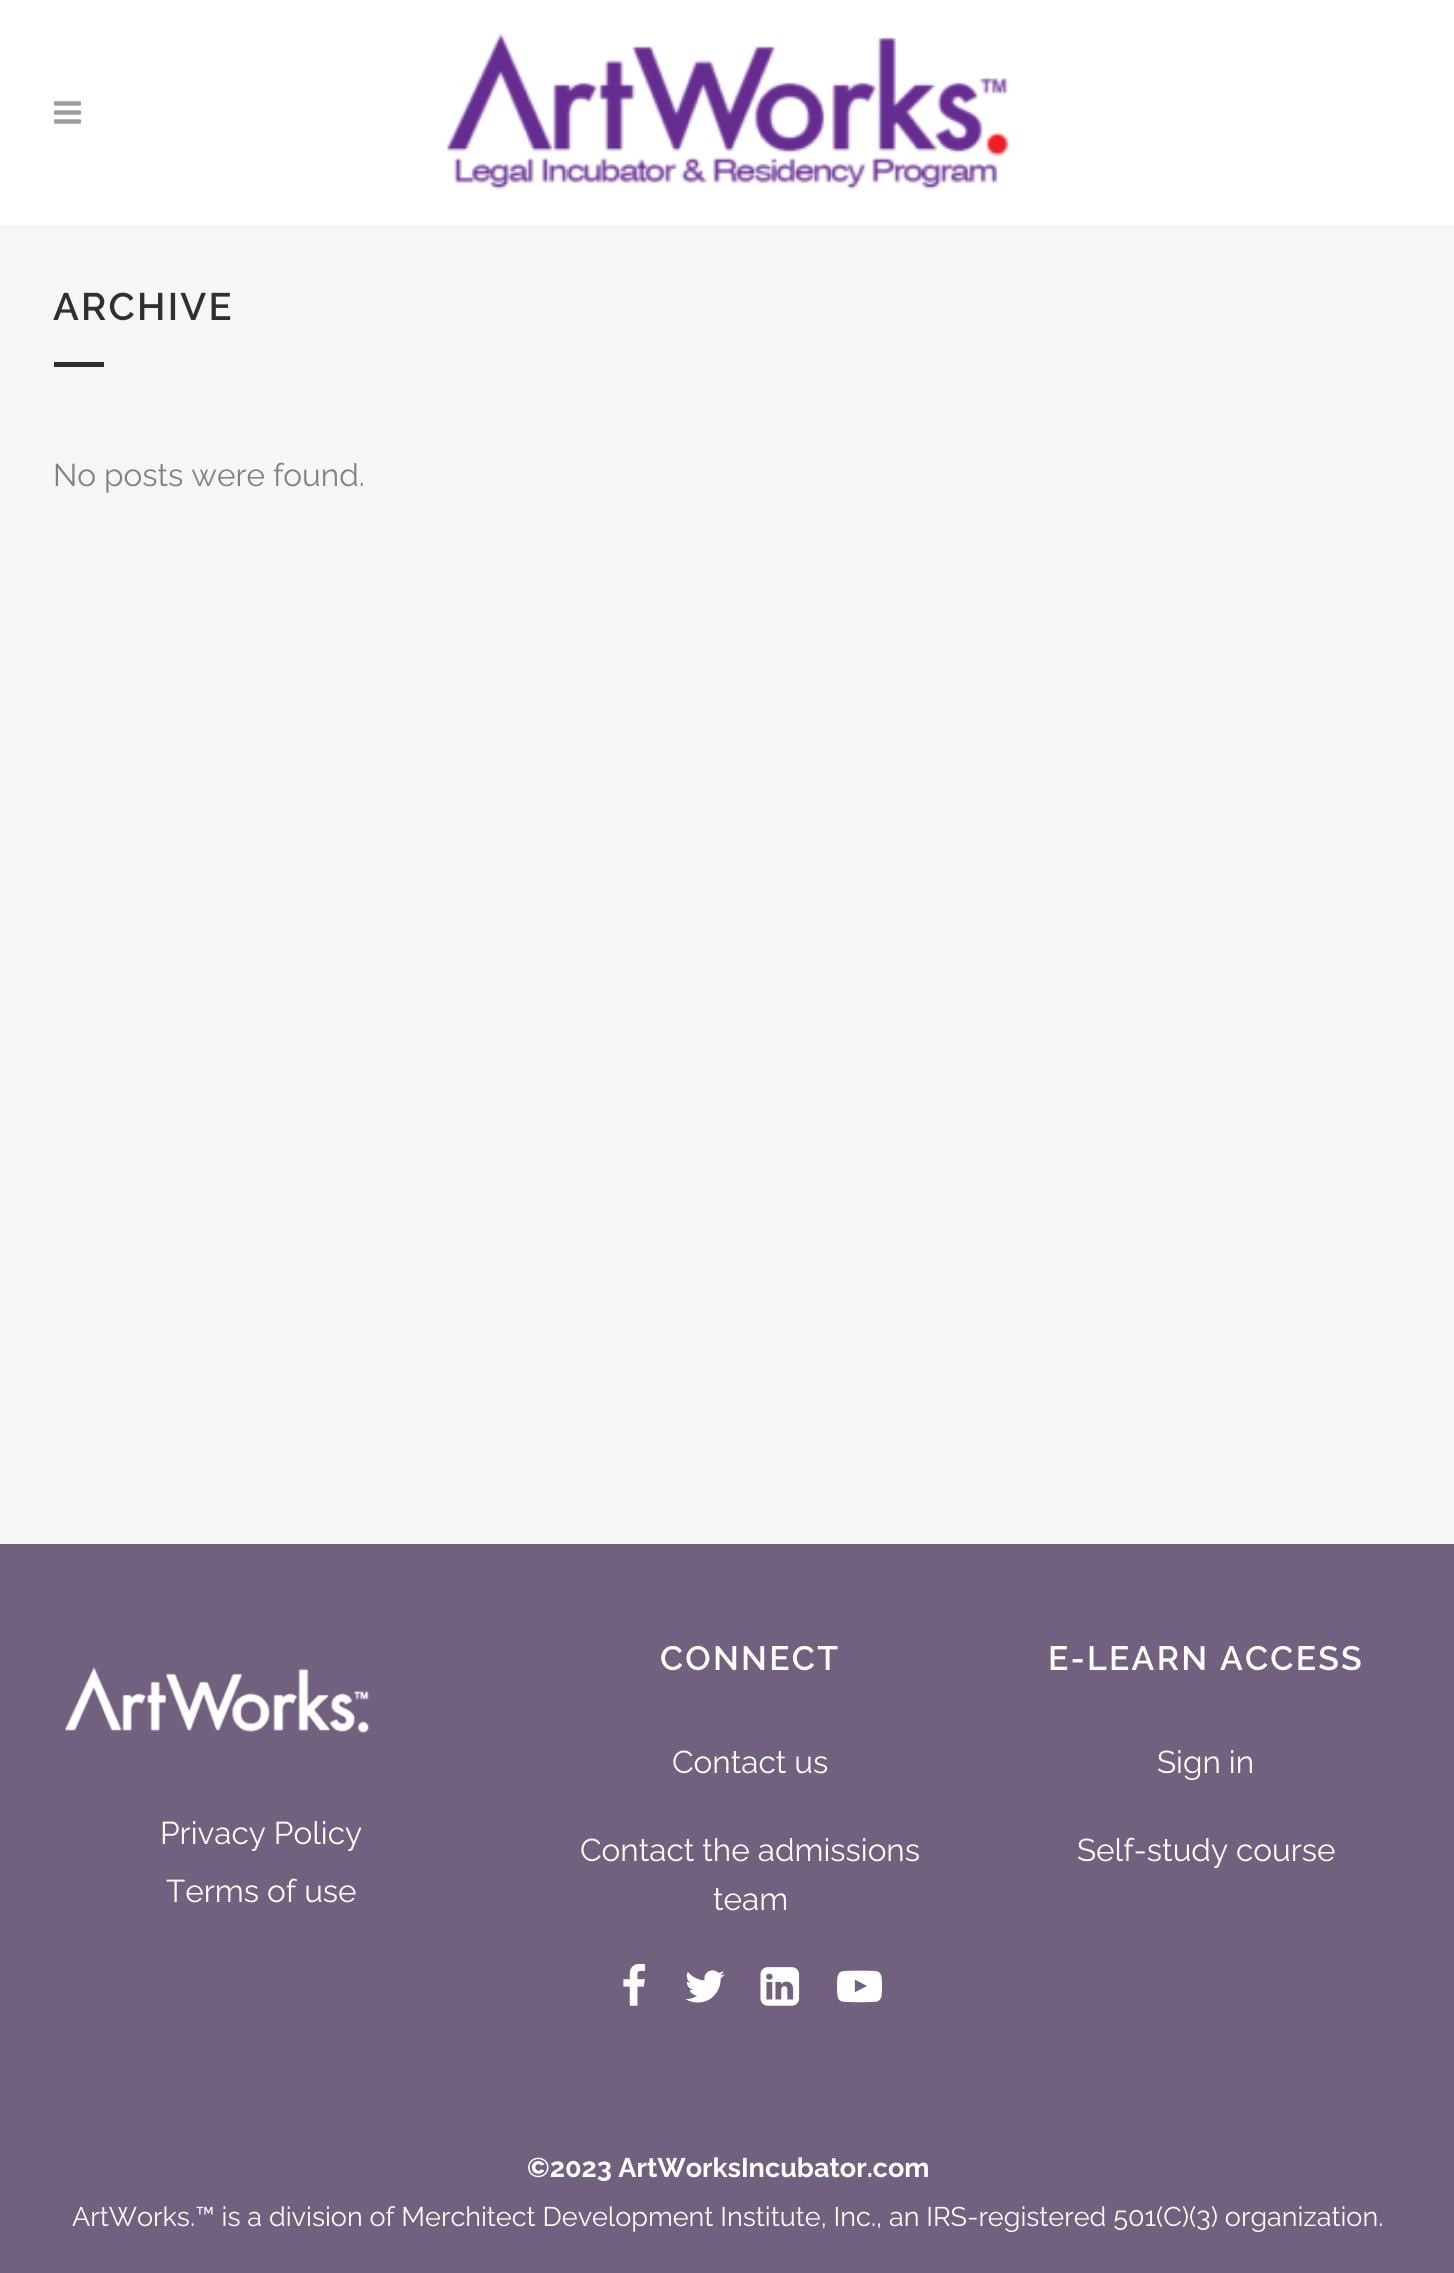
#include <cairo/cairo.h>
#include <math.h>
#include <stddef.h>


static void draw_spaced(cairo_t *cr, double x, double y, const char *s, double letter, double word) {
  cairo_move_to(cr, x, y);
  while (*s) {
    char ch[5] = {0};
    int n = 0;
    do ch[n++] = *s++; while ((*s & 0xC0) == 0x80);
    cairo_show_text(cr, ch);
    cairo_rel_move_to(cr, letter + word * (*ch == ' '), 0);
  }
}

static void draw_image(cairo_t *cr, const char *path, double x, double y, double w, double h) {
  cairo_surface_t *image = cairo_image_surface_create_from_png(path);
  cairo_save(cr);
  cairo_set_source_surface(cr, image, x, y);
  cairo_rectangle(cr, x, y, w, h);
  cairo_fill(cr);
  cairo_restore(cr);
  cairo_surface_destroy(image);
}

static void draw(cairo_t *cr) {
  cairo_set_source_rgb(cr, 246 / 255.0, 246 / 255.0, 246 / 255.0);
  cairo_paint(cr);
  cairo_set_source_rgb(cr, 1, 1, 1);
  cairo_rectangle(cr, 0, 0, 1454, 225);
  cairo_fill(cr);
  draw_image(cr, "images/1.png", 54, 101, 27, 23);
  draw_image(cr, "images/2.png", 447, 33, 562, 157);
  cairo_set_source_rgb(cr, 48 / 255.0, 48 / 255.0, 48 / 255.0);
  cairo_rectangle(cr, 54, 362, 50, 5);
  cairo_fill(cr);
  cairo_set_source_rgb(cr, 113 / 255.0, 96 / 255.0, 126 / 255.0);
  cairo_rectangle(cr, 0, 1544, 1454, 729);
  cairo_fill(cr);
  draw_image(cr, "images/3.png", 64, 1667, 306, 67);
  draw_image(cr, "images/4.png", 623, 1963, 23, 43);
  draw_image(cr, "images/5.png", 685, 1970, 40, 33);
  draw_image(cr, "images/6.png", 760, 1967, 40, 39);
  draw_image(cr, "images/7.png", 837, 1970, 45, 33);
  cairo_select_font_face(cr, "Raleway SemiBold", CAIRO_FONT_SLANT_NORMAL, CAIRO_FONT_WEIGHT_NORMAL);
  cairo_set_font_size(cr, 38.25);
  cairo_set_source_rgb(cr, 48 / 255.0, 48 / 255.0, 48 / 255.0);
  draw_spaced(cr, 53, 320, "ARCHIVE", 2.25, 0);
  cairo_select_font_face(cr, "Raleway", CAIRO_FONT_SLANT_NORMAL, CAIRO_FONT_WEIGHT_NORMAL);
  cairo_set_font_size(cr, 31.5);
  cairo_set_source_rgb(cr, 129 / 255.0, 129 / 255.0, 129 / 255.0);
  cairo_move_to(cr, 53, 486);
  cairo_show_text(cr, "No posts were found.");
  cairo_set_source_rgb(cr, 1, 1, 1);
  cairo_move_to(cr, 160, 1844);
  cairo_show_text(cr, "Privacy Policy");
  cairo_move_to(cr, 166, 1902);
  cairo_show_text(cr, "Terms of use");
  cairo_select_font_face(cr, "Raleway SemiBold", CAIRO_FONT_SLANT_NORMAL, CAIRO_FONT_WEIGHT_NORMAL);
  cairo_set_font_size(cr, 33.75);
  draw_spaced(cr, 660, 1670, "CONNECT", 2.25, 0);
  cairo_select_font_face(cr, "Raleway", CAIRO_FONT_SLANT_NORMAL, CAIRO_FONT_WEIGHT_NORMAL);
  cairo_set_font_size(cr, 31.5);
  cairo_move_to(cr, 672, 1773);
  cairo_show_text(cr, "Contact us");
  cairo_move_to(cr, 580, 1861);
  cairo_show_text(cr, "Contact the admissions");
  cairo_move_to(cr, 713, 1910);
  cairo_show_text(cr, "team");
  cairo_select_font_face(cr, "Raleway SemiBold", CAIRO_FONT_SLANT_NORMAL, CAIRO_FONT_WEIGHT_NORMAL);
  cairo_set_font_size(cr, 33.75);
  draw_spaced(cr, 1048, 1670, "E-LEARN ACCESS", 2.25, 0);
  cairo_select_font_face(cr, "Raleway", CAIRO_FONT_SLANT_NORMAL, CAIRO_FONT_WEIGHT_NORMAL);
  cairo_set_font_size(cr, 31.5);
  cairo_move_to(cr, 1157, 1773);
  cairo_show_text(cr, "Sign in");
  cairo_move_to(cr, 1077, 1861);
  cairo_show_text(cr, "Self-study course");
  cairo_select_font_face(cr, "Raleway", CAIRO_FONT_SLANT_NORMAL, CAIRO_FONT_WEIGHT_BOLD);
  cairo_set_font_size(cr, 27);
  cairo_move_to(cr, 527, 2177);
  cairo_show_text(cr, "©2023 ArtWorksIncubator.com");
  cairo_select_font_face(cr, "Raleway", CAIRO_FONT_SLANT_NORMAL, CAIRO_FONT_WEIGHT_NORMAL);
  cairo_move_to(cr, 72, 2226);
  cairo_show_text(cr, "ArtWorks.™ is a division of Merchitect Development Institute, Inc., an IRS-registered 501(C)(3) organization.");
}

int main(void) {
  cairo_surface_t *surface = cairo_image_surface_create(CAIRO_FORMAT_RGB24, 1454, 2273);
  cairo_t *cr = cairo_create(surface);
  cairo_font_options_t *options = cairo_font_options_create();
  cairo_font_options_set_hint_metrics(options, CAIRO_HINT_METRICS_OFF);
  cairo_font_options_set_hint_style(options, CAIRO_HINT_STYLE_NONE);
  cairo_set_font_options(cr, options);
  cairo_set_miter_limit(cr, 4);
  draw(cr);
  cairo_surface_write_to_png(surface, "out.png");
  cairo_font_options_destroy(options);
  cairo_destroy(cr);
  cairo_surface_destroy(surface);
  return 0;
}
